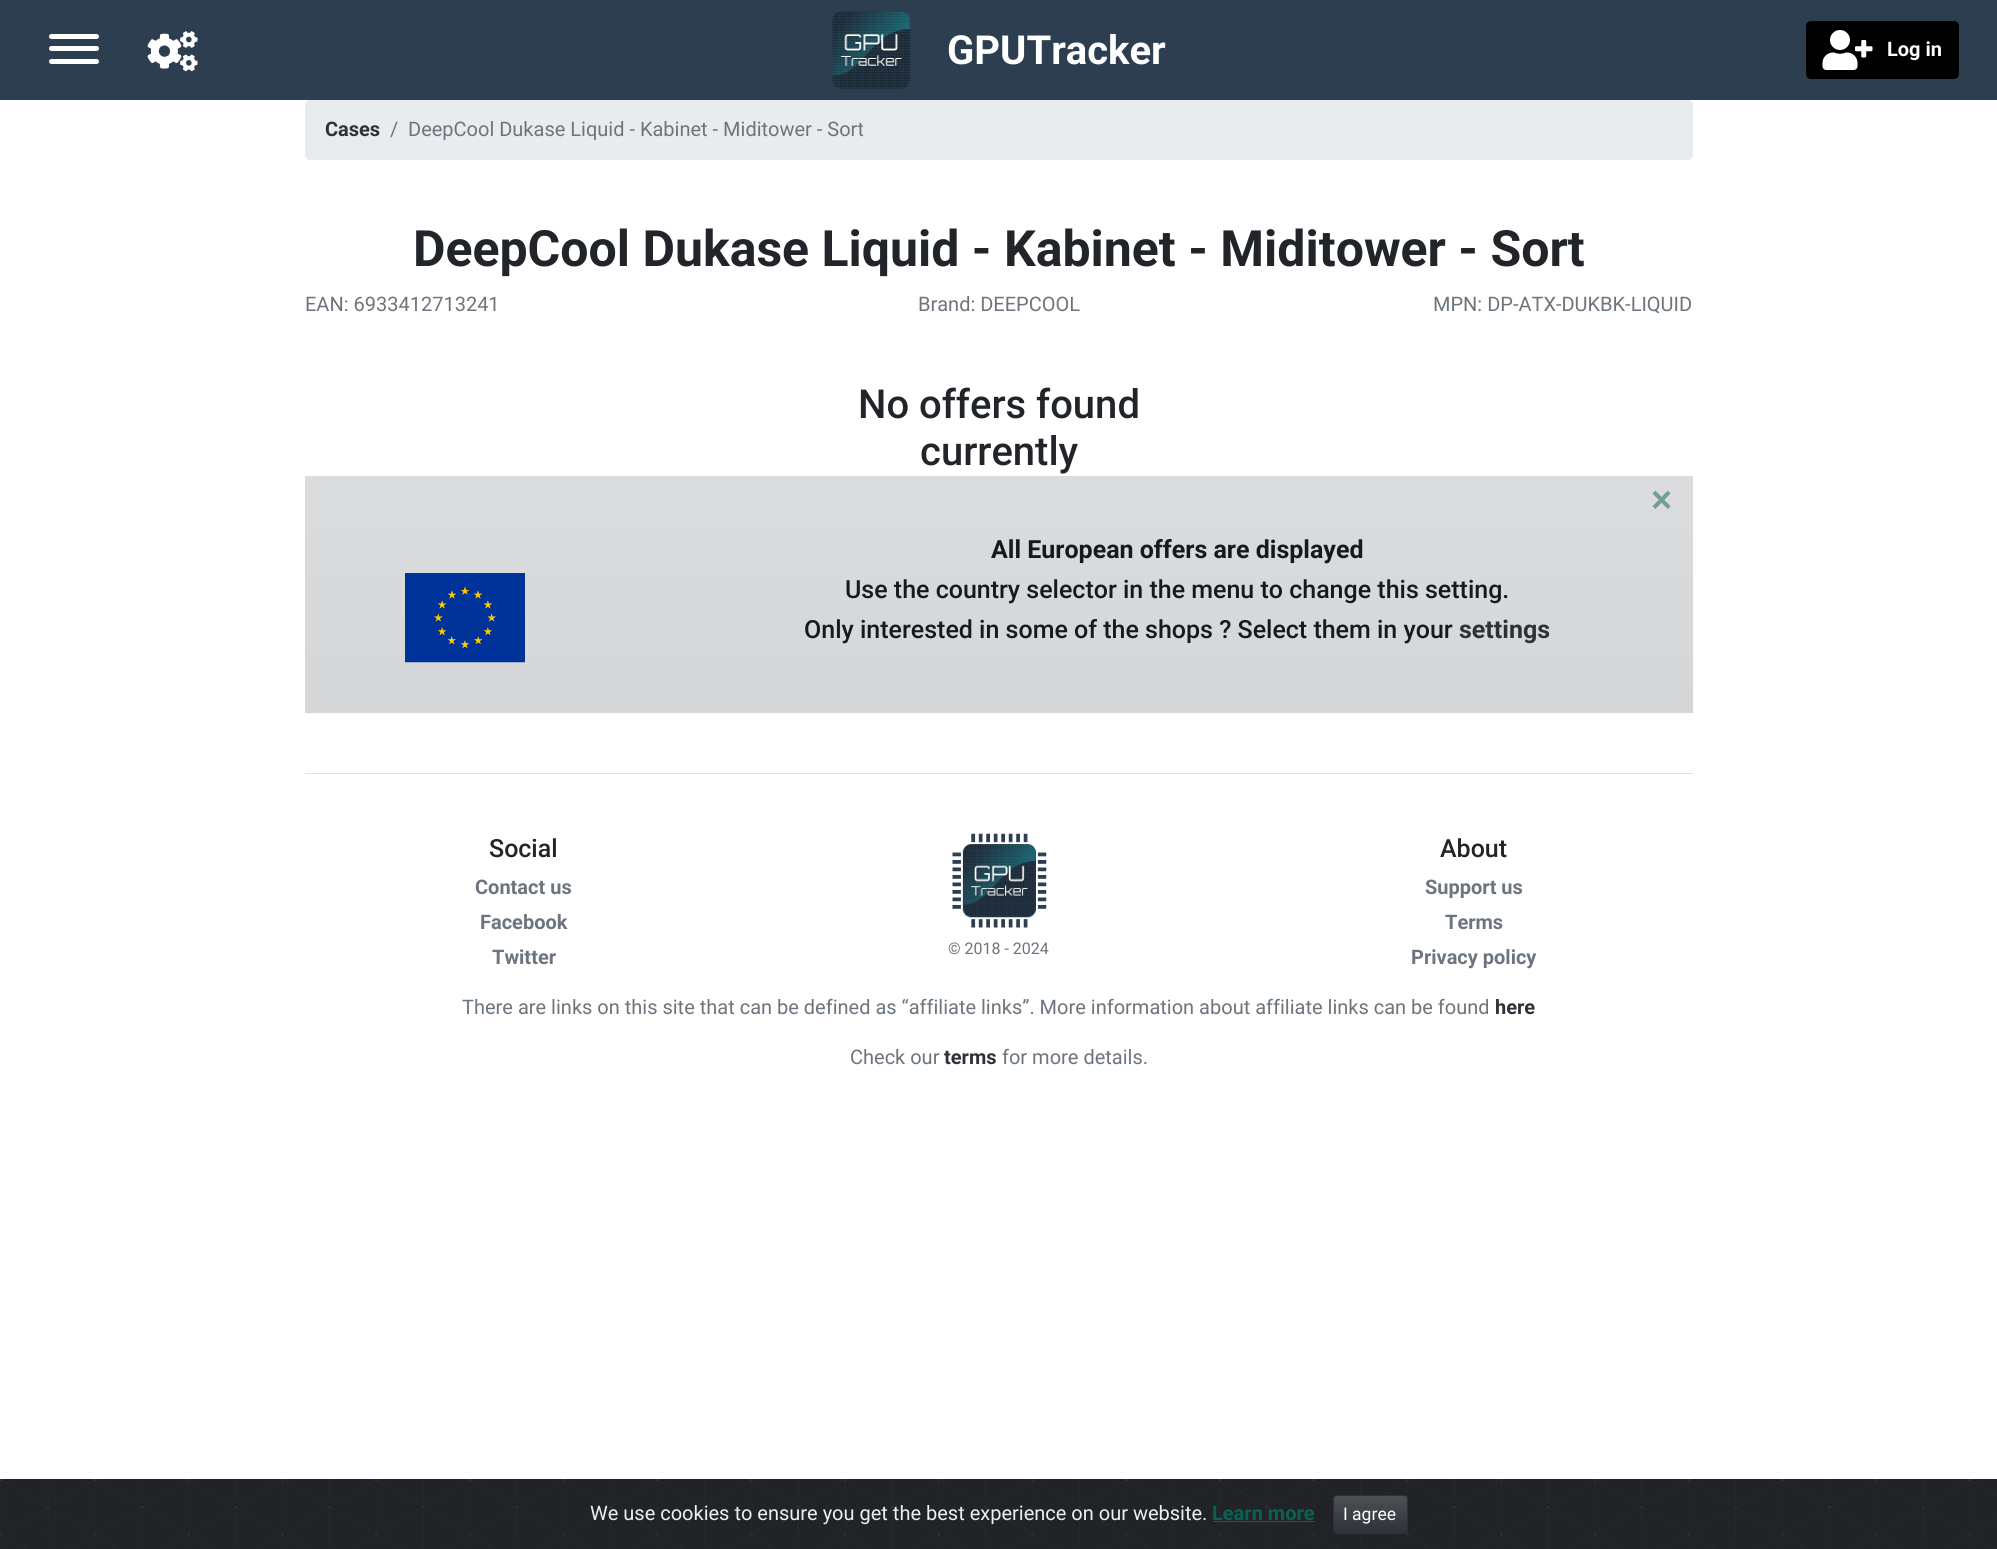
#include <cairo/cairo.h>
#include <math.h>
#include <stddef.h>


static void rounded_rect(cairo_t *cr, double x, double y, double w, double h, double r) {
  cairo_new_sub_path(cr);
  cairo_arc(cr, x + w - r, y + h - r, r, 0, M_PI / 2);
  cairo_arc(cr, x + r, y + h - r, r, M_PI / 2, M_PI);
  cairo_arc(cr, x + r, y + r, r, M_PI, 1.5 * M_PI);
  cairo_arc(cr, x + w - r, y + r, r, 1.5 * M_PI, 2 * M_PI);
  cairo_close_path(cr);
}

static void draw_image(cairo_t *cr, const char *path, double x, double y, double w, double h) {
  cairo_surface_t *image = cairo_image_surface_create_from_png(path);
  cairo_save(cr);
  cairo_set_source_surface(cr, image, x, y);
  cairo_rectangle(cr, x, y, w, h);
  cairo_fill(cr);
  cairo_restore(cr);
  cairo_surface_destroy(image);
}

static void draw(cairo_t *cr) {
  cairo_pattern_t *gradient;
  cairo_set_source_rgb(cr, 1, 1, 1);
  cairo_paint(cr);
  cairo_set_source_rgb(cr, 44 / 255.0, 62 / 255.0, 80 / 255.0);
  cairo_rectangle(cr, 0, 0, 1997, 100);
  cairo_fill(cr);
  cairo_set_source_rgb(cr, 1, 1, 1);
  rounded_rect(cr, 49, 46, 50, 5, 2.5);
  cairo_fill(cr);
  rounded_rect(cr, 49, 34, 50, 5, 2.5);
  cairo_fill(cr);
  rounded_rect(cr, 49, 59, 50, 5, 2.5);
  cairo_fill(cr);
  draw_image(cr, "images/1.png", 147, 31, 51, 41);
  draw_image(cr, "images/2.png", 832, 11, 79, 78);
  cairo_set_source_rgb(cr, 0, 0, 0);
  rounded_rect(cr, 1806, 21, 153, 58, 5);
  cairo_fill(cr);
  draw_image(cr, "images/3.png", 1822, 30, 51, 40);
  cairo_set_source_rgb(cr, 233 / 255.0, 236 / 255.0, 239 / 255.0);
  rounded_rect(cr, 305, 100, 1388, 60, 5);
  cairo_fill(cr);
  gradient = cairo_pattern_create_linear(999, 476, 999, 713);
  cairo_pattern_add_color_stop_rgba(gradient, 0, 219 / 255.0, 220 / 255.0, 221 / 255.0, 1);
  cairo_pattern_add_color_stop_rgba(gradient, 1, 213 / 255.0, 214 / 255.0, 215 / 255.0, 1);
  cairo_set_source(cr, gradient);
  cairo_pattern_destroy(gradient);
  cairo_rectangle(cr, 305, 476, 1388, 237);
  cairo_fill(cr);
  draw_image(cr, "images/4.png", 405, 573, 120, 90);
  cairo_set_source_rgb(cr, 222 / 255.0, 226 / 255.0, 230 / 255.0);
  cairo_rectangle(cr, 305, 773, 1388, 1);
  cairo_fill(cr);
  draw_image(cr, "images/5.png", 952, 833, 95, 95);
  draw_image(cr, "images/6.png", 0, 1479, 1997, 70);
  cairo_set_source_rgb(cr, 11 / 255.0, 97 / 255.0, 81 / 255.0);
  cairo_rectangle(cr, 1213, 1521, 102, 1);
  cairo_fill(cr);
  cairo_save(cr);
  rounded_rect(cr, 1333, 1495, 75, 39, 4);
  cairo_clip(cr);
  gradient = cairo_pattern_create_linear(1370, 1496, 1370, 1533);
  cairo_pattern_add_color_stop_rgba(gradient, 0, 76 / 255.0, 81 / 255.0, 86 / 255.0, 1);
  cairo_pattern_add_color_stop_rgba(gradient, 1, 44 / 255.0, 50 / 255.0, 56 / 255.0, 1);
  cairo_set_source(cr, gradient);
  cairo_pattern_destroy(gradient);
  cairo_rectangle(cr, 1333, 1496, 75, 37);
  cairo_fill(cr);
  cairo_restore(cr);
  rounded_rect(cr, 1333.5, 1495.5, 74, 38, 3.5);
  cairo_set_source_rgb(cr, 44 / 255.0, 50 / 255.0, 56 / 255.0);
  cairo_set_line_width(cr, 1);
  cairo_stroke(cr);
  cairo_select_font_face(cr, "Roboto", CAIRO_FONT_SLANT_NORMAL, CAIRO_FONT_WEIGHT_BOLD);
  cairo_set_font_size(cr, 40);
  cairo_set_source_rgb(cr, 1, 1, 1);
  cairo_move_to(cr, 947, 64);
  cairo_show_text(cr, "GPUTracker");
  cairo_set_font_size(cr, 20);
  cairo_move_to(cr, 1887, 56);
  cairo_show_text(cr, "Log in");
  cairo_set_source_rgb(cr, 44 / 255.0, 50 / 255.0, 56 / 255.0);
  cairo_move_to(cr, 325, 136);
  cairo_show_text(cr, "Cases");
  cairo_select_font_face(cr, "Roboto", CAIRO_FONT_SLANT_NORMAL, CAIRO_FONT_WEIGHT_NORMAL);
  cairo_set_source_rgb(cr, 108 / 255.0, 117 / 255.0, 125 / 255.0);
  cairo_move_to(cr, 390, 136);
  cairo_show_text(cr, "/");
  cairo_move_to(cr, 408, 136);
  cairo_show_text(cr, "DeepCool Dukase Liquid - Kabinet - Miditower - Sort");
  cairo_select_font_face(cr, "Roboto", CAIRO_FONT_SLANT_NORMAL, CAIRO_FONT_WEIGHT_BOLD);
  cairo_set_font_size(cr, 50);
  cairo_set_source_rgb(cr, 33 / 255.0, 37 / 255.0, 41 / 255.0);
  cairo_move_to(cr, 413, 266);
  cairo_show_text(cr, "DeepCool Dukase Liquid - Kabinet - Miditower - Sort");
  cairo_select_font_face(cr, "Roboto", CAIRO_FONT_SLANT_NORMAL, CAIRO_FONT_WEIGHT_NORMAL);
  cairo_set_font_size(cr, 20);
  cairo_set_source_rgb(cr, 108 / 255.0, 117 / 255.0, 125 / 255.0);
  cairo_move_to(cr, 305, 311);
  cairo_show_text(cr, "EAN: 6933412713241");
  cairo_move_to(cr, 918, 311);
  cairo_show_text(cr, "Brand: DEEPCOOL");
  cairo_move_to(cr, 1433, 311);
  cairo_show_text(cr, "MPN: DP-ATX-DUKBK-LIQUID");
  cairo_select_font_face(cr, "Roboto Medium", CAIRO_FONT_SLANT_NORMAL, CAIRO_FONT_WEIGHT_NORMAL);
  cairo_set_font_size(cr, 40);
  cairo_set_source_rgb(cr, 33 / 255.0, 37 / 255.0, 41 / 255.0);
  cairo_move_to(cr, 858, 418);
  cairo_show_text(cr, "No offers found");
  cairo_move_to(cr, 920, 465);
  cairo_show_text(cr, "currently");
  cairo_set_source_rgb(cr, 115 / 255.0, 158 / 255.0, 151 / 255.0);
  cairo_move_to(cr, 1651, 513);
  cairo_show_text(cr, "×");
  cairo_select_font_face(cr, "Roboto", CAIRO_FONT_SLANT_NORMAL, CAIRO_FONT_WEIGHT_BOLD);
  cairo_set_font_size(cr, 25);
  cairo_set_source_rgb(cr, 23 / 255.0, 26 / 255.0, 29 / 255.0);
  cairo_move_to(cr, 991, 558);
  cairo_show_text(cr, "All European offers are displayed");
  cairo_select_font_face(cr, "Roboto Medium", CAIRO_FONT_SLANT_NORMAL, CAIRO_FONT_WEIGHT_NORMAL);
  cairo_move_to(cr, 845, 598);
  cairo_show_text(cr, "Use the country selector in the menu to change this setting.");
  cairo_move_to(cr, 804, 638);
  cairo_show_text(cr, "Only interested in some of the shops ? Select them in your");
  cairo_select_font_face(cr, "Roboto", CAIRO_FONT_SLANT_NORMAL, CAIRO_FONT_WEIGHT_BOLD);
  cairo_set_source_rgb(cr, 44 / 255.0, 50 / 255.0, 56 / 255.0);
  cairo_move_to(cr, 1459, 638);
  cairo_show_text(cr, "settings");
  cairo_select_font_face(cr, "Roboto Medium", CAIRO_FONT_SLANT_NORMAL, CAIRO_FONT_WEIGHT_NORMAL);
  cairo_set_source_rgb(cr, 33 / 255.0, 37 / 255.0, 41 / 255.0);
  cairo_move_to(cr, 489, 857);
  cairo_show_text(cr, "Social");
  cairo_select_font_face(cr, "Roboto", CAIRO_FONT_SLANT_NORMAL, CAIRO_FONT_WEIGHT_BOLD);
  cairo_set_font_size(cr, 20);
  cairo_set_source_rgb(cr, 108 / 255.0, 117 / 255.0, 125 / 255.0);
  cairo_move_to(cr, 475, 894);
  cairo_show_text(cr, "Contact us");
  cairo_move_to(cr, 480, 929);
  cairo_show_text(cr, "Facebook");
  cairo_move_to(cr, 492, 964);
  cairo_show_text(cr, "Twitter");
  cairo_select_font_face(cr, "Roboto", CAIRO_FONT_SLANT_NORMAL, CAIRO_FONT_WEIGHT_NORMAL);
  cairo_set_font_size(cr, 16);
  cairo_move_to(cr, 948, 954);
  cairo_show_text(cr, "© 2018 - 2024");
  cairo_select_font_face(cr, "Roboto Medium", CAIRO_FONT_SLANT_NORMAL, CAIRO_FONT_WEIGHT_NORMAL);
  cairo_set_font_size(cr, 25);
  cairo_set_source_rgb(cr, 33 / 255.0, 37 / 255.0, 41 / 255.0);
  cairo_move_to(cr, 1440, 857);
  cairo_show_text(cr, "About");
  cairo_select_font_face(cr, "Roboto", CAIRO_FONT_SLANT_NORMAL, CAIRO_FONT_WEIGHT_BOLD);
  cairo_set_font_size(cr, 20);
  cairo_set_source_rgb(cr, 108 / 255.0, 117 / 255.0, 125 / 255.0);
  cairo_move_to(cr, 1425, 894);
  cairo_show_text(cr, "Support us");
  cairo_move_to(cr, 1445, 929);
  cairo_show_text(cr, "Terms");
  cairo_move_to(cr, 1411, 964);
  cairo_show_text(cr, "Privacy policy");
  cairo_select_font_face(cr, "Roboto", CAIRO_FONT_SLANT_NORMAL, CAIRO_FONT_WEIGHT_NORMAL);
  cairo_move_to(cr, 462, 1014);
  cairo_show_text(cr, "There are links on this site that can be defined as “affiliate links”. More information about affiliate links can be found");
  cairo_select_font_face(cr, "Roboto", CAIRO_FONT_SLANT_NORMAL, CAIRO_FONT_WEIGHT_BOLD);
  cairo_set_source_rgb(cr, 44 / 255.0, 50 / 255.0, 56 / 255.0);
  cairo_move_to(cr, 1495, 1014);
  cairo_show_text(cr, "here");
  cairo_select_font_face(cr, "Roboto", CAIRO_FONT_SLANT_NORMAL, CAIRO_FONT_WEIGHT_NORMAL);
  cairo_set_source_rgb(cr, 108 / 255.0, 117 / 255.0, 125 / 255.0);
  cairo_move_to(cr, 850, 1064);
  cairo_show_text(cr, "Check our");
  cairo_select_font_face(cr, "Roboto", CAIRO_FONT_SLANT_NORMAL, CAIRO_FONT_WEIGHT_BOLD);
  cairo_set_source_rgb(cr, 44 / 255.0, 50 / 255.0, 56 / 255.0);
  cairo_move_to(cr, 944, 1064);
  cairo_show_text(cr, "terms");
  cairo_select_font_face(cr, "Roboto", CAIRO_FONT_SLANT_NORMAL, CAIRO_FONT_WEIGHT_NORMAL);
  cairo_set_source_rgb(cr, 108 / 255.0, 117 / 255.0, 125 / 255.0);
  cairo_move_to(cr, 1002, 1064);
  cairo_show_text(cr, "for more details.");
  cairo_set_source_rgb(cr, 236 / 255.0, 240 / 255.0, 241 / 255.0);
  cairo_move_to(cr, 590, 1520);
  cairo_show_text(cr, "We use cookies to ensure you get the best experience on our website.");
  cairo_select_font_face(cr, "Roboto", CAIRO_FONT_SLANT_NORMAL, CAIRO_FONT_WEIGHT_BOLD);
  cairo_set_source_rgb(cr, 11 / 255.0, 97 / 255.0, 81 / 255.0);
  cairo_move_to(cr, 1212, 1520);
  cairo_show_text(cr, "Learn more");
  cairo_select_font_face(cr, "Roboto", CAIRO_FONT_SLANT_NORMAL, CAIRO_FONT_WEIGHT_NORMAL);
  cairo_set_font_size(cr, 17.5);
  cairo_set_source_rgb(cr, 1, 1, 1);
  cairo_move_to(cr, 1343, 1520);
  cairo_show_text(cr, "I agree");
}

int main(void) {
  cairo_surface_t *surface = cairo_image_surface_create(CAIRO_FORMAT_RGB24, 1997, 1549);
  cairo_t *cr = cairo_create(surface);
  cairo_font_options_t *options = cairo_font_options_create();
  cairo_font_options_set_hint_metrics(options, CAIRO_HINT_METRICS_OFF);
  cairo_font_options_set_hint_style(options, CAIRO_HINT_STYLE_NONE);
  cairo_set_font_options(cr, options);
  cairo_set_miter_limit(cr, 4);
  draw(cr);
  cairo_surface_write_to_png(surface, "out.png");
  cairo_font_options_destroy(options);
  cairo_destroy(cr);
  cairo_surface_destroy(surface);
  return 0;
}
